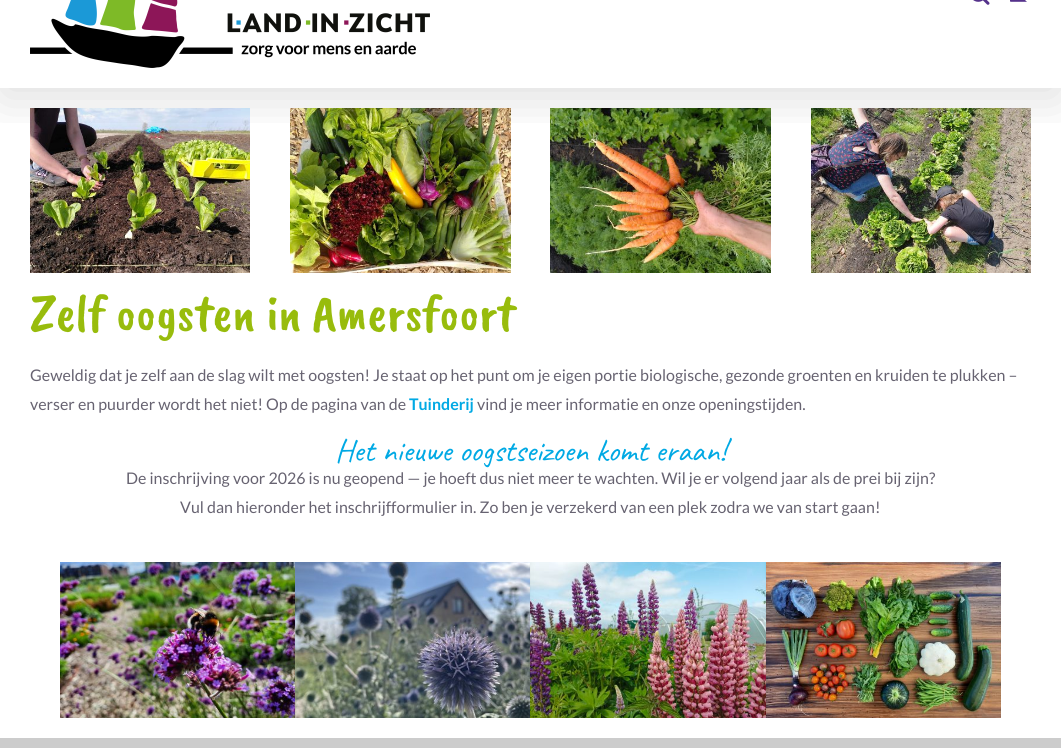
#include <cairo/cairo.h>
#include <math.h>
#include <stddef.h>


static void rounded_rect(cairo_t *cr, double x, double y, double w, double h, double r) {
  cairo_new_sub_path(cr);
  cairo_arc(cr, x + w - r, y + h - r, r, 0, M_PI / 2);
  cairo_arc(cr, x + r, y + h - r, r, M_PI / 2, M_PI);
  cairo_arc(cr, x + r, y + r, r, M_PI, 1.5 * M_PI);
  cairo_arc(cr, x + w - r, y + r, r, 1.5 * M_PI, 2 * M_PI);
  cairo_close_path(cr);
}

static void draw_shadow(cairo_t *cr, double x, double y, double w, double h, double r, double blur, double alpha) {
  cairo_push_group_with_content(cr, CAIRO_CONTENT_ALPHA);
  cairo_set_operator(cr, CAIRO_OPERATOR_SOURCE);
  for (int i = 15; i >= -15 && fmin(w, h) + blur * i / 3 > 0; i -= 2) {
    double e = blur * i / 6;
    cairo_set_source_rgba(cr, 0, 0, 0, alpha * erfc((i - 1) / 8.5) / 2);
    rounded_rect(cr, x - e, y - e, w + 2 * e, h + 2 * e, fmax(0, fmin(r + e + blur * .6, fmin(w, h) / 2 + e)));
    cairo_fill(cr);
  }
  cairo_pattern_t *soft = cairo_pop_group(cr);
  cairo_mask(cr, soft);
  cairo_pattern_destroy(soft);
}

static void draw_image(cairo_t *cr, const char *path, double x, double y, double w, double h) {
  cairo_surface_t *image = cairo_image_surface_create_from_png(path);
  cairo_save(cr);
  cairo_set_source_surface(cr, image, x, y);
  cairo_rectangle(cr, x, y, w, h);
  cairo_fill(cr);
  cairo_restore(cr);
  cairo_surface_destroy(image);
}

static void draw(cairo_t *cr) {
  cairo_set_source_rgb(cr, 1, 1, 1);
  cairo_paint(cr);
  draw_image(cr, "images/4.png", 30, 108, 220, 165);
  draw_image(cr, "images/5.png", 290, 108, 221, 165);
  draw_image(cr, "images/6.png", 550, 108, 221, 165);
  draw_image(cr, "images/7.png", 811, 108, 220, 165);
  cairo_save(cr);
  cairo_rectangle(cr, 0, 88, 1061, 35);
  cairo_clip(cr);
  cairo_set_source_rgb(cr, 0, 0, 0);
  draw_shadow(cr, 2, -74, 1057, 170, 0, 25, 0.14);
  cairo_restore(cr);
  draw_image(cr, "images/1.png", 30, 0, 400, 68);
  draw_image(cr, "images/2.png", 973, 0, 17, 5);
  draw_image(cr, "images/3.png", 1010, 0, 17, 2);
  cairo_set_source_rgb(cr, 1, 1, 1);
  cairo_new_path(cr);
  cairo_move_to(cr, 1025, 0);
  cairo_line_to(cr, 1061, 0);
  cairo_line_to(cr, 1061, 36);
  cairo_close_path(cr);
  cairo_fill(cr);
  draw_image(cr, "images/8.png", 60, 562, 235, 156);
  draw_image(cr, "images/9.png", 295, 562, 235, 156);
  draw_image(cr, "images/10.png", 530, 562, 236, 156);
  draw_image(cr, "images/11.png", 766, 562, 235, 156);
  cairo_set_source_rgb(cr, 204 / 255.0, 204 / 255.0, 204 / 255.0);
  cairo_rectangle(cr, 0, 738, 1061, 10);
  cairo_fill(cr);
  cairo_select_font_face(cr, "Caveat Brush", CAIRO_FONT_SLANT_NORMAL, CAIRO_FONT_WEIGHT_NORMAL);
  cairo_set_font_size(cr, 52);
  cairo_set_source_rgb(cr, 152 / 255.0, 188 / 255.0, 12 / 255.0);
  cairo_move_to(cr, 30, 330);
  cairo_show_text(cr, "Zelf oogsten in Amersfoort");
  cairo_select_font_face(cr, "Lato", CAIRO_FONT_SLANT_NORMAL, CAIRO_FONT_WEIGHT_NORMAL);
  cairo_set_font_size(cr, 16);
  cairo_set_source_rgb(cr, 103 / 255.0, 99 / 255.0, 113 / 255.0);
  cairo_move_to(cr, 30, 381);
  cairo_show_text(cr, "Geweldig dat je zelf aan de slag wilt met oogsten! Je staat op het punt om je eigen portie biologische, gezonde groenten en kruiden te plukken –");
  cairo_move_to(cr, 30, 410);
  cairo_show_text(cr, "verser en puurder wordt het niet! Op de pagina van de");
  cairo_select_font_face(cr, "Lato", CAIRO_FONT_SLANT_NORMAL, CAIRO_FONT_WEIGHT_BOLD);
  cairo_set_source_rgb(cr, 0, 169 / 255.0, 228 / 255.0);
  cairo_move_to(cr, 409, 410);
  cairo_show_text(cr, "Tuinderij");
  cairo_select_font_face(cr, "Lato", CAIRO_FONT_SLANT_NORMAL, CAIRO_FONT_WEIGHT_NORMAL);
  cairo_set_source_rgb(cr, 103 / 255.0, 99 / 255.0, 113 / 255.0);
  cairo_move_to(cr, 477, 410);
  cairo_show_text(cr, "vind je meer informatie en onze openingstijden.");
  cairo_select_font_face(cr, "Caveat", CAIRO_FONT_SLANT_NORMAL, CAIRO_FONT_WEIGHT_NORMAL);
  cairo_set_font_size(cr, 32);
  cairo_set_source_rgb(cr, 0, 169 / 255.0, 228 / 255.0);
  cairo_move_to(cr, 335, 461);
  cairo_show_text(cr, "Het nieuwe oogstseizoen komt eraan!");
  cairo_select_font_face(cr, "Lato", CAIRO_FONT_SLANT_NORMAL, CAIRO_FONT_WEIGHT_NORMAL);
  cairo_set_font_size(cr, 16);
  cairo_set_source_rgb(cr, 103 / 255.0, 99 / 255.0, 113 / 255.0);
  cairo_move_to(cr, 126, 484);
  cairo_show_text(cr, "De inschrijving voor 2026 is nu geopend — je hoeft dus niet meer te wachten. Wil je er volgend jaar als de prei bij zijn?");
  cairo_move_to(cr, 180, 513);
  cairo_show_text(cr, "Vul dan hieronder het inschrijfformulier in. Zo ben je verzekerd van een plek zodra we van start gaan!");
}

int main(void) {
  cairo_surface_t *surface = cairo_image_surface_create(CAIRO_FORMAT_RGB24, 1061, 748);
  cairo_t *cr = cairo_create(surface);
  cairo_font_options_t *options = cairo_font_options_create();
  cairo_font_options_set_hint_metrics(options, CAIRO_HINT_METRICS_OFF);
  cairo_font_options_set_hint_style(options, CAIRO_HINT_STYLE_NONE);
  cairo_set_font_options(cr, options);
  cairo_set_miter_limit(cr, 4);
  draw(cr);
  cairo_surface_write_to_png(surface, "out.png");
  cairo_font_options_destroy(options);
  cairo_destroy(cr);
  cairo_surface_destroy(surface);
  return 0;
}
